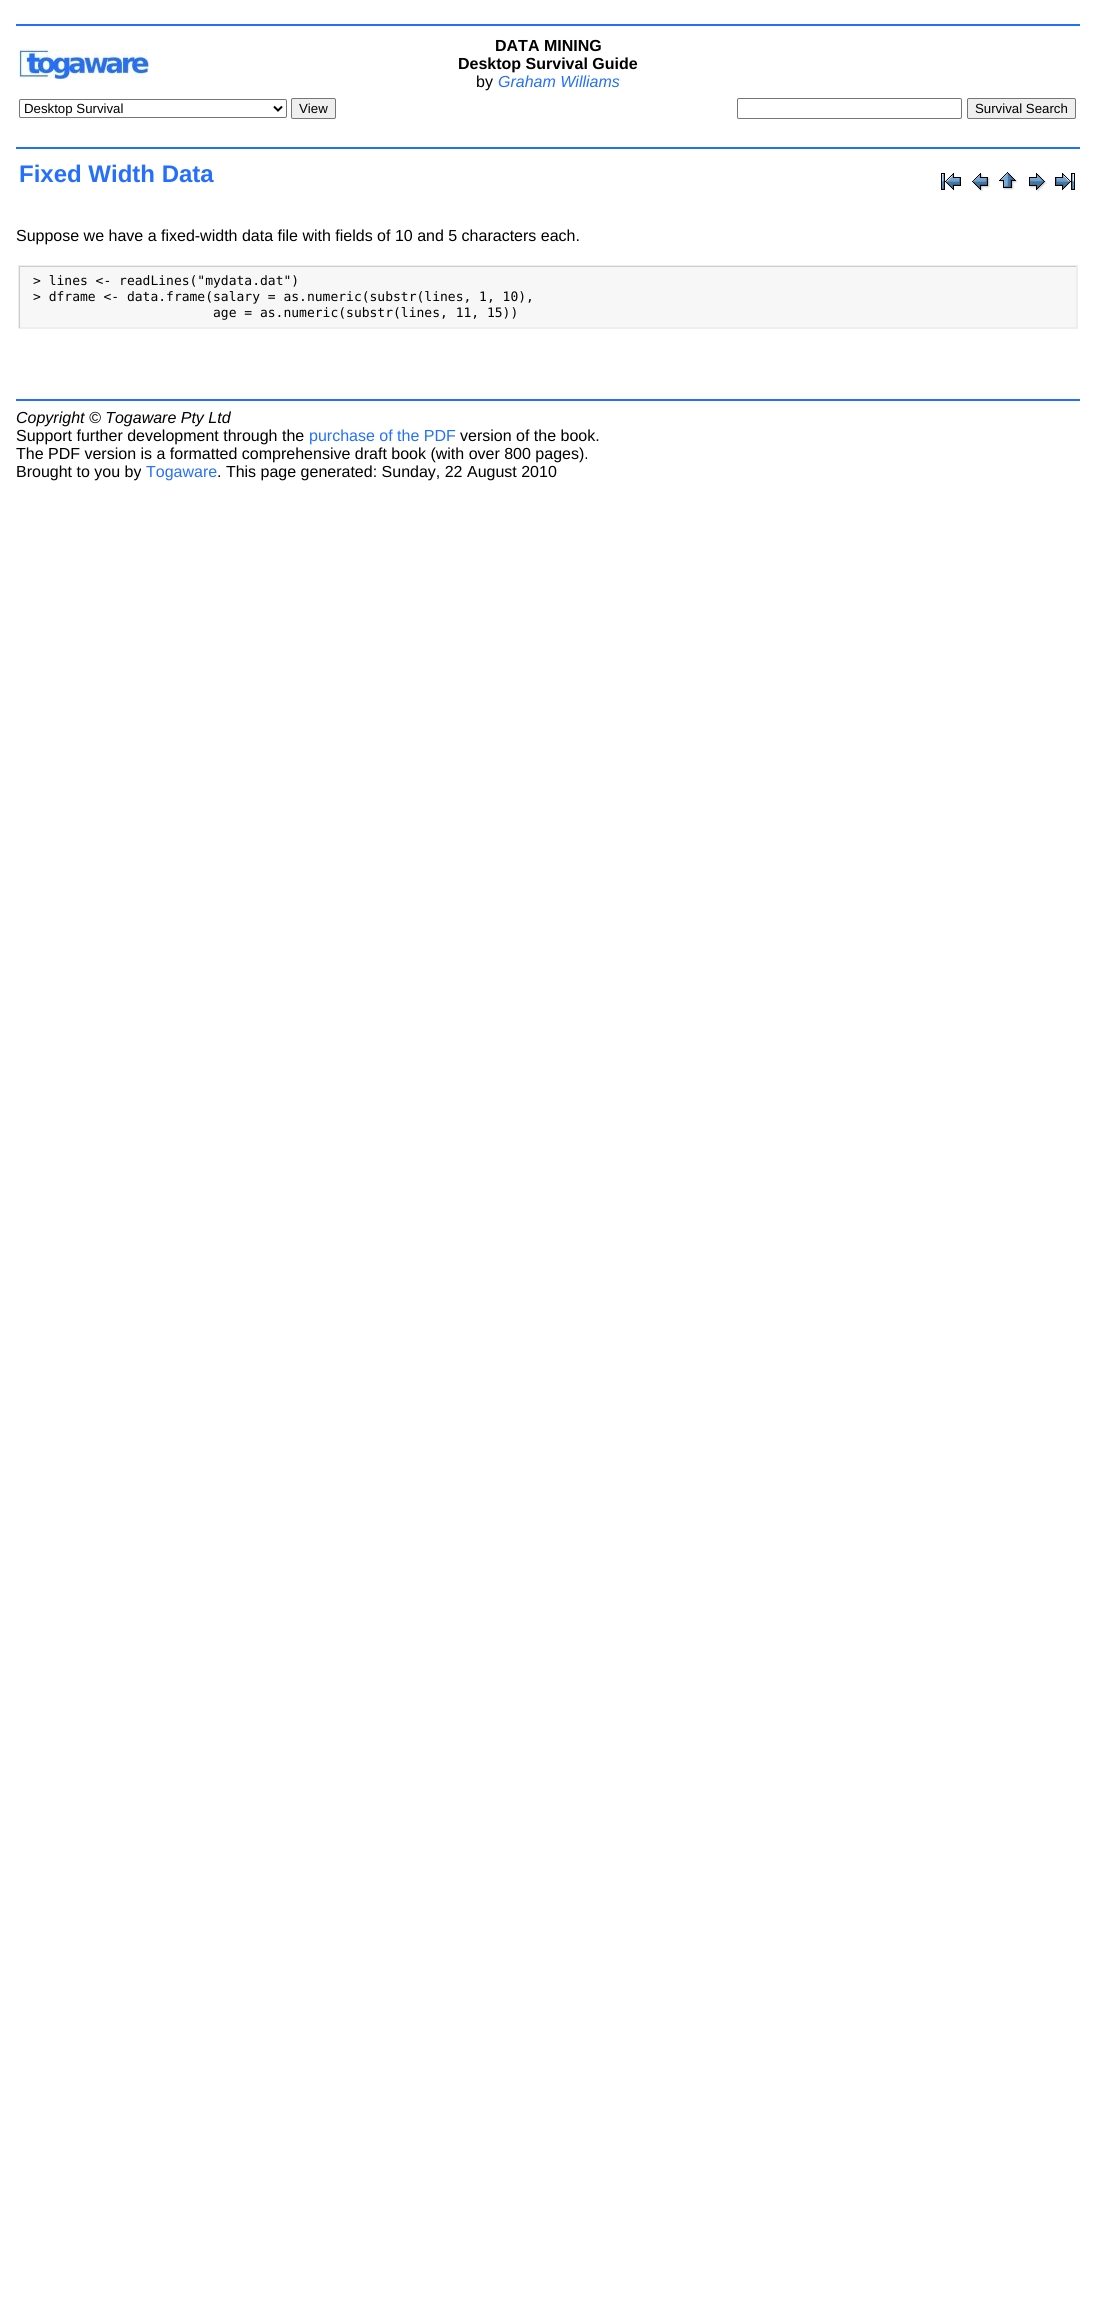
#include <cairo/cairo.h>
#include <math.h>
#include <stddef.h>


static void rounded_rect(cairo_t *cr, double x, double y, double w, double h, double r) {
  cairo_new_sub_path(cr);
  cairo_arc(cr, x + w - r, y + h - r, r, 0, M_PI / 2);
  cairo_arc(cr, x + r, y + h - r, r, M_PI / 2, M_PI);
  cairo_arc(cr, x + r, y + r, r, M_PI, 1.5 * M_PI);
  cairo_arc(cr, x + w - r, y + r, r, 1.5 * M_PI, 2 * M_PI);
  cairo_close_path(cr);
}

static void draw_image(cairo_t *cr, const char *path, double x, double y, double w, double h) {
  cairo_surface_t *image = cairo_image_surface_create_from_png(path);
  cairo_save(cr);
  cairo_set_source_surface(cr, image, x, y);
  cairo_rectangle(cr, x, y, w, h);
  cairo_fill(cr);
  cairo_restore(cr);
  cairo_surface_destroy(image);
}

static void draw(cairo_t *cr) {
  cairo_set_source_rgb(cr, 1, 1, 1);
  cairo_paint(cr);
  cairo_set_source_rgb(cr, 36 / 255.0, 111 / 255.0, 1);
  cairo_rectangle(cr, 16, 24, 1064, 2);
  cairo_fill(cr);
  draw_image(cr, "images/1.png", 19, 49, 130, 30);
  rounded_rect(cr, 19.5, 99.5, 267, 18, 1.5);
  cairo_set_source_rgb(cr, 118 / 255.0, 118 / 255.0, 118 / 255.0);
  cairo_set_line_width(cr, 1);
  cairo_stroke(cr);
  cairo_new_path(cr);
  cairo_move_to(cr, 274, 106.5);
  cairo_line_to(cr, 278, 110.5);
  cairo_line_to(cr, 282, 106.5);
  cairo_set_source_rgb(cr, 0, 0, 0);
  cairo_set_line_width(cr, 2);
  cairo_stroke(cr);
  cairo_set_source_rgb(cr, 239 / 255.0, 239 / 255.0, 239 / 255.0);
  rounded_rect(cr, 291.5, 98.5, 44, 20, 1.5);
  cairo_fill_preserve(cr);
  cairo_set_source_rgb(cr, 118 / 255.0, 118 / 255.0, 118 / 255.0);
  cairo_set_line_width(cr, 1);
  cairo_stroke(cr);
  rounded_rect(cr, 737.5, 98.5, 224, 20, 1.5);
  cairo_stroke(cr);
  cairo_set_source_rgb(cr, 239 / 255.0, 239 / 255.0, 239 / 255.0);
  rounded_rect(cr, 967.5, 98.5, 108, 20, 1.5);
  cairo_fill_preserve(cr);
  cairo_set_source_rgb(cr, 118 / 255.0, 118 / 255.0, 118 / 255.0);
  cairo_stroke(cr);
  cairo_set_source_rgb(cr, 36 / 255.0, 111 / 255.0, 1);
  cairo_rectangle(cr, 16, 147, 1064, 2);
  cairo_fill(cr);
  draw_image(cr, "images/2.png", 941, 172, 20, 19);
  draw_image(cr, "images/3.png", 972, 173, 18, 19);
  draw_image(cr, "images/4.png", 999, 172, 19, 18);
  draw_image(cr, "images/5.png", 1029, 173, 18, 19);
  draw_image(cr, "images/6.png", 1055, 172, 20, 19);
  cairo_set_source_rgb(cr, 238 / 255.0, 238 / 255.0, 238 / 255.0);
  cairo_rectangle(cr, 18, 265, 1060, 64);
  cairo_fill(cr);
  cairo_set_source_rgb(cr, 247 / 255.0, 247 / 255.0, 247 / 255.0);
  cairo_rectangle(cr, 20, 267, 1056, 60);
  cairo_fill(cr);
  cairo_set_source_rgb(cr, 204 / 255.0, 204 / 255.0, 204 / 255.0);
  cairo_rectangle(cr, 19, 266, 1058, 1);
  cairo_fill(cr);
  cairo_set_source_rgb(cr, 238 / 255.0, 238 / 255.0, 238 / 255.0);
  cairo_rectangle(cr, 1076, 266, 1, 1);
  cairo_fill(cr);
  cairo_set_source_rgb(cr, 204 / 255.0, 204 / 255.0, 204 / 255.0);
  cairo_rectangle(cr, 19, 266, 1, 62);
  cairo_fill(cr);
  cairo_set_source_rgb(cr, 36 / 255.0, 111 / 255.0, 1);
  cairo_rectangle(cr, 16, 399, 1064, 2);
  cairo_fill(cr);
  cairo_select_font_face(cr, "Liberation Sans", CAIRO_FONT_SLANT_NORMAL, CAIRO_FONT_WEIGHT_BOLD);
  cairo_set_font_size(cr, 16);
  cairo_set_source_rgb(cr, 0, 0, 0);
  cairo_move_to(cr, 495, 51);
  cairo_show_text(cr, "DATA MINING");
  cairo_move_to(cr, 458, 69);
  cairo_show_text(cr, "Desktop Survival Guide");
  cairo_select_font_face(cr, "Liberation Sans", CAIRO_FONT_SLANT_NORMAL, CAIRO_FONT_WEIGHT_NORMAL);
  cairo_move_to(cr, 476, 87);
  cairo_show_text(cr, "by");
  cairo_select_font_face(cr, "Liberation Sans", CAIRO_FONT_SLANT_ITALIC, CAIRO_FONT_WEIGHT_NORMAL);
  cairo_set_source_rgb(cr, 36 / 255.0, 111 / 255.0, 1);
  cairo_move_to(cr, 498, 87);
  cairo_show_text(cr, "Graham Williams");
  cairo_select_font_face(cr, "Liberation Sans", CAIRO_FONT_SLANT_NORMAL, CAIRO_FONT_WEIGHT_NORMAL);
  cairo_set_font_size(cr, 13.25);
  cairo_set_source_rgb(cr, 0, 0, 0);
  cairo_move_to(cr, 24, 113);
  cairo_show_text(cr, "Desktop Survival");
  cairo_move_to(cr, 299, 113);
  cairo_show_text(cr, "View");
  cairo_move_to(cr, 975, 113);
  cairo_show_text(cr, "Survival Search");
  cairo_select_font_face(cr, "Liberation Sans", CAIRO_FONT_SLANT_NORMAL, CAIRO_FONT_WEIGHT_BOLD);
  cairo_set_font_size(cr, 24);
  cairo_set_source_rgb(cr, 36 / 255.0, 111 / 255.0, 1);
  cairo_move_to(cr, 19, 182);
  cairo_show_text(cr, "Fixed Width Data");
  cairo_select_font_face(cr, "Liberation Sans", CAIRO_FONT_SLANT_NORMAL, CAIRO_FONT_WEIGHT_NORMAL);
  cairo_set_font_size(cr, 16);
  cairo_set_source_rgb(cr, 0, 0, 0);
  cairo_move_to(cr, 16, 241);
  cairo_show_text(cr, "Suppose we have a fixed-width data file with fields of 10 and 5 characters each.");
  cairo_select_font_face(cr, "DejaVu Sans Mono", CAIRO_FONT_SLANT_NORMAL, CAIRO_FONT_WEIGHT_NORMAL);
  cairo_set_font_size(cr, 13);
  cairo_move_to(cr, 33, 285);
  cairo_show_text(cr, "> lines <- readLines(\"mydata.dat\")");
  cairo_move_to(cr, 33, 301);
  cairo_show_text(cr, "> dframe <- data.frame(salary = as.numeric(substr(lines, 1, 10),");
  cairo_move_to(cr, 213, 317);
  cairo_show_text(cr, "age = as.numeric(substr(lines, 11, 15))");
  cairo_select_font_face(cr, "Liberation Sans", CAIRO_FONT_SLANT_ITALIC, CAIRO_FONT_WEIGHT_NORMAL);
  cairo_set_font_size(cr, 16);
  cairo_move_to(cr, 16, 423);
  cairo_show_text(cr, "Copyright © Togaware Pty Ltd");
  cairo_select_font_face(cr, "Liberation Sans", CAIRO_FONT_SLANT_NORMAL, CAIRO_FONT_WEIGHT_NORMAL);
  cairo_move_to(cr, 16, 441);
  cairo_show_text(cr, "Support further development through the");
  cairo_set_source_rgb(cr, 36 / 255.0, 111 / 255.0, 1);
  cairo_move_to(cr, 309, 441);
  cairo_show_text(cr, "purchase of the PDF");
  cairo_set_source_rgb(cr, 0, 0, 0);
  cairo_move_to(cr, 460, 441);
  cairo_show_text(cr, "version of the book.");
  cairo_move_to(cr, 16, 459);
  cairo_show_text(cr, "The PDF version is a formatted comprehensive draft book (with over 800 pages).");
  cairo_move_to(cr, 16, 477);
  cairo_show_text(cr, "Brought to you by");
  cairo_set_source_rgb(cr, 36 / 255.0, 111 / 255.0, 1);
  cairo_move_to(cr, 146, 477);
  cairo_show_text(cr, "Togaware");
  cairo_set_source_rgb(cr, 0, 0, 0);
  cairo_move_to(cr, 217, 477);
  cairo_show_text(cr, ". This page generated: Sunday, 22 August 2010");
}

int main(void) {
  cairo_surface_t *surface = cairo_image_surface_create(CAIRO_FORMAT_RGB24, 1096, 2303);
  cairo_t *cr = cairo_create(surface);
  cairo_font_options_t *options = cairo_font_options_create();
  cairo_font_options_set_hint_metrics(options, CAIRO_HINT_METRICS_OFF);
  cairo_font_options_set_hint_style(options, CAIRO_HINT_STYLE_NONE);
  cairo_set_font_options(cr, options);
  cairo_set_miter_limit(cr, 4);
  draw(cr);
  cairo_surface_write_to_png(surface, "out.png");
  cairo_font_options_destroy(options);
  cairo_destroy(cr);
  cairo_surface_destroy(surface);
  return 0;
}
